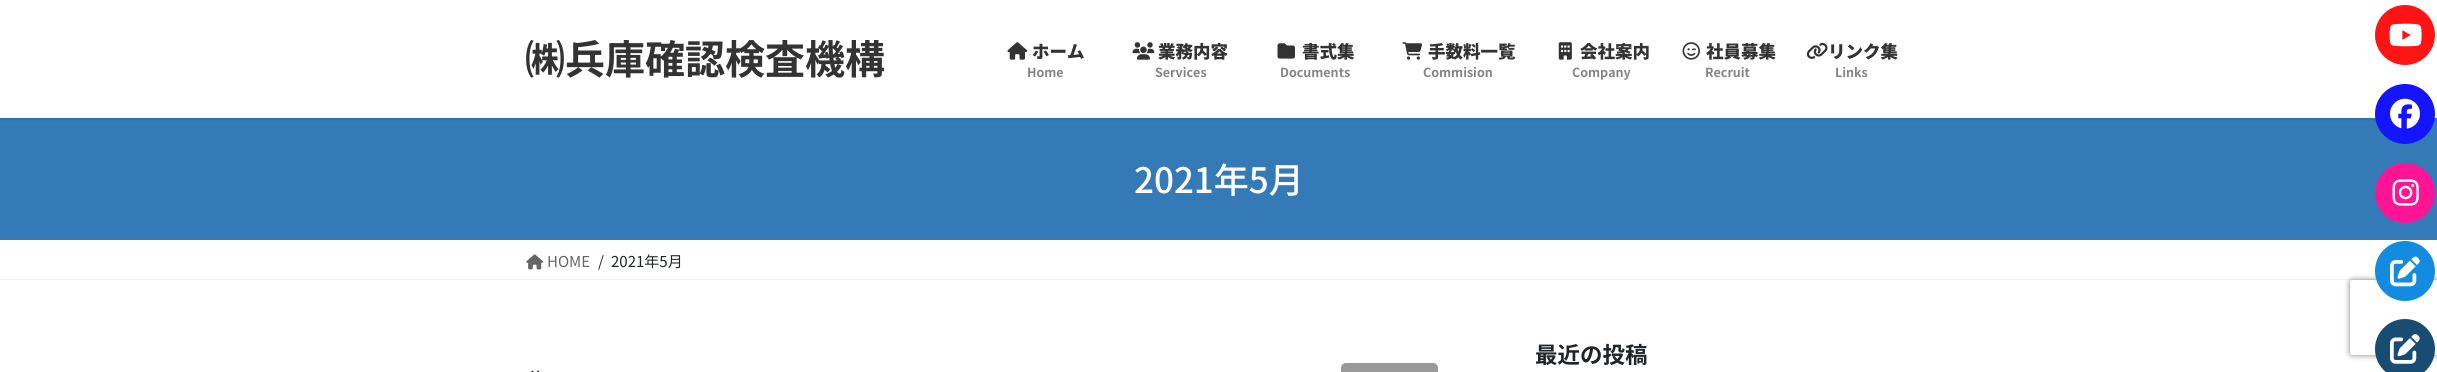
#include <cairo/cairo.h>
#include <math.h>
#include <stddef.h>


static void rounded_rect(cairo_t *cr, double x, double y, double w, double h, double r) {
  cairo_new_sub_path(cr);
  cairo_arc(cr, x + w - r, y + h - r, r, 0, M_PI / 2);
  cairo_arc(cr, x + r, y + h - r, r, M_PI / 2, M_PI);
  cairo_arc(cr, x + r, y + r, r, M_PI, 1.5 * M_PI);
  cairo_arc(cr, x + w - r, y + r, r, 1.5 * M_PI, 2 * M_PI);
  cairo_close_path(cr);
}

static void draw_shadow(cairo_t *cr, double x, double y, double w, double h, double r, double blur, double alpha) {
  cairo_push_group_with_content(cr, CAIRO_CONTENT_ALPHA);
  cairo_set_operator(cr, CAIRO_OPERATOR_SOURCE);
  for (int i = 15; i >= -15 && fmin(w, h) + blur * i / 3 > 0; i -= 2) {
    double e = blur * i / 6;
    cairo_set_source_rgba(cr, 0, 0, 0, alpha * erfc((i - 1) / 8.5) / 2);
    rounded_rect(cr, x - e, y - e, w + 2 * e, h + 2 * e, fmax(0, fmin(r + e + blur * .6, fmin(w, h) / 2 + e)));
    cairo_fill(cr);
  }
  cairo_pattern_t *soft = cairo_pop_group(cr);
  cairo_mask(cr, soft);
  cairo_pattern_destroy(soft);
}

static void draw_image(cairo_t *cr, const char *path, double x, double y, double w, double h) {
  cairo_surface_t *image = cairo_image_surface_create_from_png(path);
  cairo_save(cr);
  cairo_set_source_surface(cr, image, x, y);
  cairo_rectangle(cr, x, y, w, h);
  cairo_fill(cr);
  cairo_restore(cr);
  cairo_surface_destroy(image);
}

static void draw(cairo_t *cr) {
  cairo_set_source_rgb(cr, 1, 1, 1);
  cairo_paint(cr);
  cairo_set_source_rgb(cr, 51 / 255.0, 122 / 255.0, 183 / 255.0);
  cairo_rectangle(cr, 0, 118, 2437, 122);
  cairo_fill(cr);
  cairo_set_source_rgb(cr, 0, 0, 0);
  draw_shadow(cr, 0, 1, 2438, 118, 0, 2, 0.1);
  cairo_set_source_rgb(cr, 1, 1, 1);
  cairo_rectangle(cr, 0, 0, 2437, 118);
  cairo_fill(cr);
  draw_image(cr, "images/1.png", 1007, 42, 21, 18);
  draw_image(cr, "images/2.png", 1132, 42, 23, 18);
  draw_image(cr, "images/3.png", 1277, 43, 18, 16);
  draw_image(cr, "images/4.png", 1402, 42, 20, 18);
  draw_image(cr, "images/5.png", 1558, 42, 14, 18);
  draw_image(cr, "images/6.png", 1682, 42, 18, 18);
  draw_image(cr, "images/7.png", 1806, 42, 22, 17);
  cairo_set_source_rgb(cr, 1, 20 / 255.0, 20 / 255.0);
  cairo_arc(cr, 2405, 35, 30, 0, 2 * M_PI);
  cairo_fill(cr);
  draw_image(cr, "images/8.png", 2389, 23, 33, 24);
  cairo_set_source_rgb(cr, 20 / 255.0, 20 / 255.0, 1);
  cairo_arc(cr, 2405, 114, 30, 0, 2 * M_PI);
  cairo_fill(cr);
  draw_image(cr, "images/9.png", 2390, 98, 30, 31);
  cairo_set_source_rgb(cr, 1, 20 / 255.0, 150 / 255.0);
  cairo_arc(cr, 2405, 193, 30, 0, 2 * M_PI);
  cairo_fill(cr);
  draw_image(cr, "images/10.png", 2392, 179, 27, 27);
  cairo_set_source_rgb(cr, 242 / 255.0, 242 / 255.0, 242 / 255.0);
  cairo_rectangle(cr, 0, 279, 2437, 1);
  cairo_fill(cr);
  cairo_save(cr);
  cairo_set_fill_rule(cr, CAIRO_FILL_RULE_EVEN_ODD);
  cairo_new_path(cr);
  cairo_move_to(cr, 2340, 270);
  cairo_line_to(cr, 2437, 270);
  cairo_line_to(cr, 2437, 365);
  cairo_line_to(cr, 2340, 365);
  cairo_close_path(cr);
  cairo_move_to(cr, 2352.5, 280);
  cairo_line_to(cr, 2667.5, 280);
  cairo_curve_to(cr, 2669, 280, 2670, 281, 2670, 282.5);
  cairo_line_to(cr, 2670, 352.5);
  cairo_curve_to(cr, 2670, 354, 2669, 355, 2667.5, 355);
  cairo_line_to(cr, 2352.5, 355);
  cairo_curve_to(cr, 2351, 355, 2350, 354, 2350, 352.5);
  cairo_line_to(cr, 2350, 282.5);
  cairo_curve_to(cr, 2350, 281, 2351, 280, 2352.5, 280);
  cairo_close_path(cr);
  cairo_clip(cr);
  cairo_set_source_rgb(cr, 128 / 255.0, 128 / 255.0, 128 / 255.0);
  draw_shadow(cr, 2350, 280, 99, 75, 2.5, 3, 1);
  cairo_restore(cr);
  cairo_set_source_rgb(cr, 18 / 255.0, 139 / 255.0, 224 / 255.0);
  cairo_arc(cr, 2405, 271, 30, 0, 2 * M_PI);
  cairo_fill(cr);
  draw_image(cr, "images/11.png", 2390, 256, 30, 31);
  cairo_set_source_rgb(cr, 24 / 255.0, 76 / 255.0, 114 / 255.0);
  cairo_arc(cr, 2405, 349, 30, 0, 2 * M_PI);
  cairo_fill(cr);
  draw_image(cr, "images/12.png", 2390, 334, 30, 30);
  draw_image(cr, "images/13.png", 526, 254, 18, 16);
  draw_image(cr, "images/14.png", 531, 370, 9, 2);
  cairo_set_source_rgb(cr, 153 / 255.0, 153 / 255.0, 153 / 255.0);
  rounded_rect(cr, 1341, 363, 97, 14, 5);
  cairo_fill(cr);
  cairo_select_font_face(cr, "Noto Sans JP", CAIRO_FONT_SLANT_NORMAL, CAIRO_FONT_WEIGHT_BOLD);
  cairo_set_font_size(cr, 40);
  cairo_set_source_rgb(cr, 51 / 255.0, 51 / 255.0, 51 / 255.0);
  cairo_move_to(cr, 525, 74);
  cairo_show_text(cr, "㈱兵庫確認検査機構");
  cairo_select_font_face(cr, "Noto Sans JP Black", CAIRO_FONT_SLANT_NORMAL, CAIRO_FONT_WEIGHT_NORMAL);
  cairo_set_font_size(cr, 17.5);
  cairo_move_to(cr, 1032, 58);
  cairo_show_text(cr, "ホーム");
  cairo_select_font_face(cr, "Noto Sans JP", CAIRO_FONT_SLANT_NORMAL, CAIRO_FONT_WEIGHT_BOLD);
  cairo_set_font_size(cr, 12.5);
  cairo_set_source_rgb(cr, 133 / 255.0, 133 / 255.0, 133 / 255.0);
  cairo_move_to(cr, 1027, 77);
  cairo_show_text(cr, "Home");
  cairo_select_font_face(cr, "Noto Sans JP Black", CAIRO_FONT_SLANT_NORMAL, CAIRO_FONT_WEIGHT_NORMAL);
  cairo_set_font_size(cr, 17.5);
  cairo_set_source_rgb(cr, 51 / 255.0, 51 / 255.0, 51 / 255.0);
  cairo_move_to(cr, 1158, 58);
  cairo_show_text(cr, "業務内容");
  cairo_select_font_face(cr, "Noto Sans JP", CAIRO_FONT_SLANT_NORMAL, CAIRO_FONT_WEIGHT_BOLD);
  cairo_set_font_size(cr, 12.5);
  cairo_set_source_rgb(cr, 133 / 255.0, 133 / 255.0, 133 / 255.0);
  cairo_move_to(cr, 1155, 77);
  cairo_show_text(cr, "Services");
  cairo_select_font_face(cr, "Noto Sans JP Black", CAIRO_FONT_SLANT_NORMAL, CAIRO_FONT_WEIGHT_NORMAL);
  cairo_set_font_size(cr, 17.5);
  cairo_set_source_rgb(cr, 51 / 255.0, 51 / 255.0, 51 / 255.0);
  cairo_move_to(cr, 1302, 58);
  cairo_show_text(cr, "書式集");
  cairo_select_font_face(cr, "Noto Sans JP", CAIRO_FONT_SLANT_NORMAL, CAIRO_FONT_WEIGHT_BOLD);
  cairo_set_font_size(cr, 12.5);
  cairo_set_source_rgb(cr, 133 / 255.0, 133 / 255.0, 133 / 255.0);
  cairo_move_to(cr, 1280, 77);
  cairo_show_text(cr, "Documents");
  cairo_select_font_face(cr, "Noto Sans JP Black", CAIRO_FONT_SLANT_NORMAL, CAIRO_FONT_WEIGHT_NORMAL);
  cairo_set_font_size(cr, 17.5);
  cairo_set_source_rgb(cr, 51 / 255.0, 51 / 255.0, 51 / 255.0);
  cairo_move_to(cr, 1428, 58);
  cairo_show_text(cr, "手数料一覧");
  cairo_select_font_face(cr, "Noto Sans JP", CAIRO_FONT_SLANT_NORMAL, CAIRO_FONT_WEIGHT_BOLD);
  cairo_set_font_size(cr, 12.5);
  cairo_set_source_rgb(cr, 133 / 255.0, 133 / 255.0, 133 / 255.0);
  cairo_move_to(cr, 1423, 77);
  cairo_show_text(cr, "Commision");
  cairo_select_font_face(cr, "Noto Sans JP Black", CAIRO_FONT_SLANT_NORMAL, CAIRO_FONT_WEIGHT_NORMAL);
  cairo_set_font_size(cr, 17.5);
  cairo_set_source_rgb(cr, 51 / 255.0, 51 / 255.0, 51 / 255.0);
  cairo_move_to(cr, 1580, 58);
  cairo_show_text(cr, "会社案内");
  cairo_select_font_face(cr, "Noto Sans JP", CAIRO_FONT_SLANT_NORMAL, CAIRO_FONT_WEIGHT_BOLD);
  cairo_set_font_size(cr, 12.5);
  cairo_set_source_rgb(cr, 133 / 255.0, 133 / 255.0, 133 / 255.0);
  cairo_move_to(cr, 1572, 77);
  cairo_show_text(cr, "Company");
  cairo_select_font_face(cr, "Noto Sans JP Black", CAIRO_FONT_SLANT_NORMAL, CAIRO_FONT_WEIGHT_NORMAL);
  cairo_set_font_size(cr, 17.5);
  cairo_set_source_rgb(cr, 51 / 255.0, 51 / 255.0, 51 / 255.0);
  cairo_move_to(cr, 1706, 58);
  cairo_show_text(cr, "社員募集");
  cairo_select_font_face(cr, "Noto Sans JP", CAIRO_FONT_SLANT_NORMAL, CAIRO_FONT_WEIGHT_BOLD);
  cairo_set_font_size(cr, 12.5);
  cairo_set_source_rgb(cr, 133 / 255.0, 133 / 255.0, 133 / 255.0);
  cairo_move_to(cr, 1705, 77);
  cairo_show_text(cr, "Recruit");
  cairo_select_font_face(cr, "Noto Sans JP Black", CAIRO_FONT_SLANT_NORMAL, CAIRO_FONT_WEIGHT_NORMAL);
  cairo_set_font_size(cr, 17.5);
  cairo_set_source_rgb(cr, 51 / 255.0, 51 / 255.0, 51 / 255.0);
  cairo_move_to(cr, 1828, 58);
  cairo_show_text(cr, "リンク集");
  cairo_select_font_face(cr, "Noto Sans JP", CAIRO_FONT_SLANT_NORMAL, CAIRO_FONT_WEIGHT_BOLD);
  cairo_set_font_size(cr, 12.5);
  cairo_set_source_rgb(cr, 133 / 255.0, 133 / 255.0, 133 / 255.0);
  cairo_move_to(cr, 1835, 77);
  cairo_show_text(cr, "Links");
  cairo_select_font_face(cr, "Noto Sans JP Medium", CAIRO_FONT_SLANT_NORMAL, CAIRO_FONT_WEIGHT_NORMAL);
  cairo_set_font_size(cr, 35);
  cairo_set_source_rgb(cr, 1, 1, 1);
  cairo_move_to(cr, 1134, 193);
  cairo_show_text(cr, "2021年5月");
  cairo_select_font_face(cr, "Noto Sans JP", CAIRO_FONT_SLANT_NORMAL, CAIRO_FONT_WEIGHT_NORMAL);
  cairo_set_font_size(cr, 15);
  cairo_set_source_rgb(cr, 102 / 255.0, 102 / 255.0, 102 / 255.0);
  cairo_move_to(cr, 547, 267);
  cairo_show_text(cr, "HOME");
  cairo_set_source_rgb(cr, 33 / 255.0, 37 / 255.0, 41 / 255.0);
  cairo_move_to(cr, 598, 267);
  cairo_show_text(cr, "/");
  cairo_move_to(cr, 611, 267);
  cairo_show_text(cr, "2021年5月");
  cairo_select_font_face(cr, "Noto Sans JP", CAIRO_FONT_SLANT_NORMAL, CAIRO_FONT_WEIGHT_BOLD);
  cairo_set_font_size(cr, 22.5);
  cairo_move_to(cr, 1535, 363);
  cairo_show_text(cr, "最近の投稿");
}

int main(void) {
  cairo_surface_t *surface = cairo_image_surface_create(CAIRO_FORMAT_RGB24, 2437, 372);
  cairo_t *cr = cairo_create(surface);
  cairo_font_options_t *options = cairo_font_options_create();
  cairo_font_options_set_hint_metrics(options, CAIRO_HINT_METRICS_OFF);
  cairo_font_options_set_hint_style(options, CAIRO_HINT_STYLE_NONE);
  cairo_set_font_options(cr, options);
  cairo_set_miter_limit(cr, 4);
  draw(cr);
  cairo_surface_write_to_png(surface, "out.png");
  cairo_font_options_destroy(options);
  cairo_destroy(cr);
  cairo_surface_destroy(surface);
  return 0;
}
